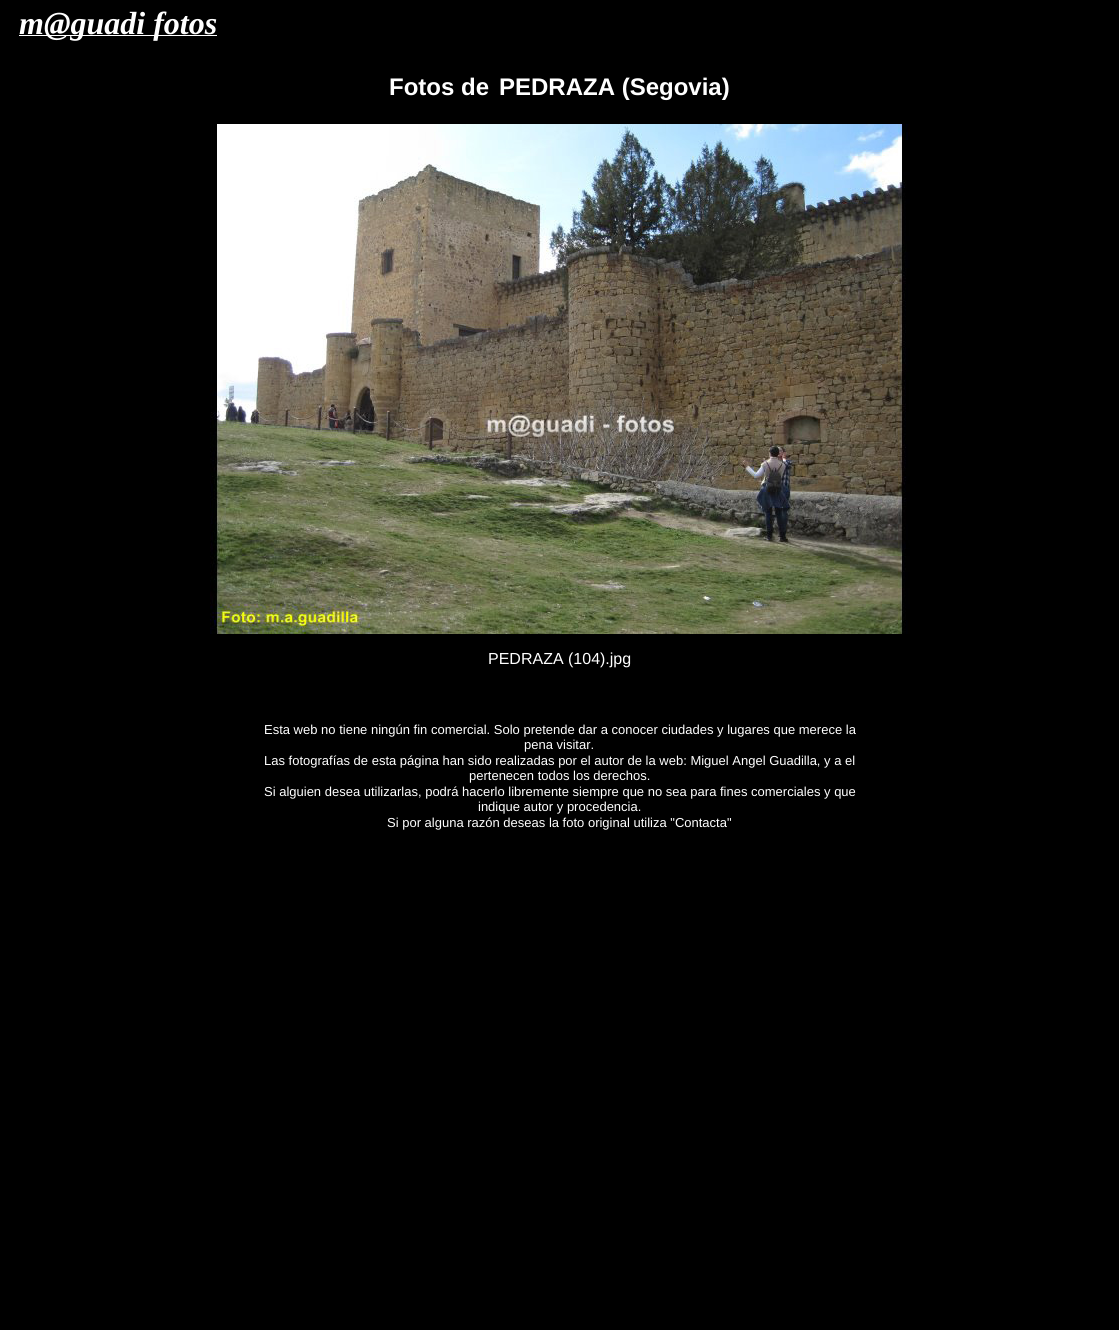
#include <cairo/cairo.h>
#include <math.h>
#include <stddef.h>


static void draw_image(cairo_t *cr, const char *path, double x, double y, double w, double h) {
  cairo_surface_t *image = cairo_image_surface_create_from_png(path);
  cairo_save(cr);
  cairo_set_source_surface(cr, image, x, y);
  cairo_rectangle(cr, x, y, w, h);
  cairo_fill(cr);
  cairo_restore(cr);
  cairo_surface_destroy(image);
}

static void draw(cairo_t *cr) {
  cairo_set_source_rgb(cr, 0, 0, 0);
  cairo_paint(cr);
  cairo_set_source_rgb(cr, 1, 1, 1);
  cairo_rectangle(cr, 19, 35, 198, 1);
  cairo_fill(cr);
  draw_image(cr, "images/1.png", 210, 124, 700, 510);
  cairo_select_font_face(cr, "Liberation Serif", CAIRO_FONT_SLANT_ITALIC, CAIRO_FONT_WEIGHT_BOLD);
  cairo_set_font_size(cr, 32);
  cairo_move_to(cr, 19, 34);
  cairo_show_text(cr, "m@guadi fotos");
  cairo_select_font_face(cr, "Liberation Sans", CAIRO_FONT_SLANT_NORMAL, CAIRO_FONT_WEIGHT_BOLD);
  cairo_set_font_size(cr, 24);
  cairo_move_to(cr, 389, 95);
  cairo_show_text(cr, "Fotos de");
  cairo_move_to(cr, 499, 95);
  cairo_show_text(cr, "PEDRAZA (Segovia)");
  cairo_select_font_face(cr, "Liberation Sans", CAIRO_FONT_SLANT_NORMAL, CAIRO_FONT_WEIGHT_NORMAL);
  cairo_set_font_size(cr, 16);
  cairo_move_to(cr, 488, 664);
  cairo_show_text(cr, "PEDRAZA (104).jpg");
  cairo_set_font_size(cr, 13);
  cairo_move_to(cr, 264, 734);
  cairo_show_text(cr, "Esta web no tiene ningún fin comercial. Solo pretende dar a conocer ciudades y lugares que merece la");
  cairo_move_to(cr, 524, 749);
  cairo_show_text(cr, "pena visitar.");
  cairo_move_to(cr, 264, 765);
  cairo_show_text(cr, "Las fotografías de esta página han sido realizadas por el autor de la web: Miguel Angel Guadilla, y a el");
  cairo_move_to(cr, 469, 780);
  cairo_show_text(cr, "pertenecen todos los derechos.");
  cairo_move_to(cr, 264, 796);
  cairo_show_text(cr, "Si alguien desea utilizarlas, podrá hacerlo libremente siempre que no sea para fines comerciales y que");
  cairo_move_to(cr, 478, 811);
  cairo_show_text(cr, "indique autor y procedencia.");
  cairo_move_to(cr, 387, 827);
  cairo_show_text(cr, "Si por alguna razón deseas la foto original utiliza \"Contacta\"");
}

int main(void) {
  cairo_surface_t *surface = cairo_image_surface_create(CAIRO_FORMAT_RGB24, 1119, 1330);
  cairo_t *cr = cairo_create(surface);
  cairo_font_options_t *options = cairo_font_options_create();
  cairo_font_options_set_hint_metrics(options, CAIRO_HINT_METRICS_OFF);
  cairo_font_options_set_hint_style(options, CAIRO_HINT_STYLE_NONE);
  cairo_set_font_options(cr, options);
  cairo_set_miter_limit(cr, 4);
  draw(cr);
  cairo_surface_write_to_png(surface, "out.png");
  cairo_font_options_destroy(options);
  cairo_destroy(cr);
  cairo_surface_destroy(surface);
  return 0;
}
